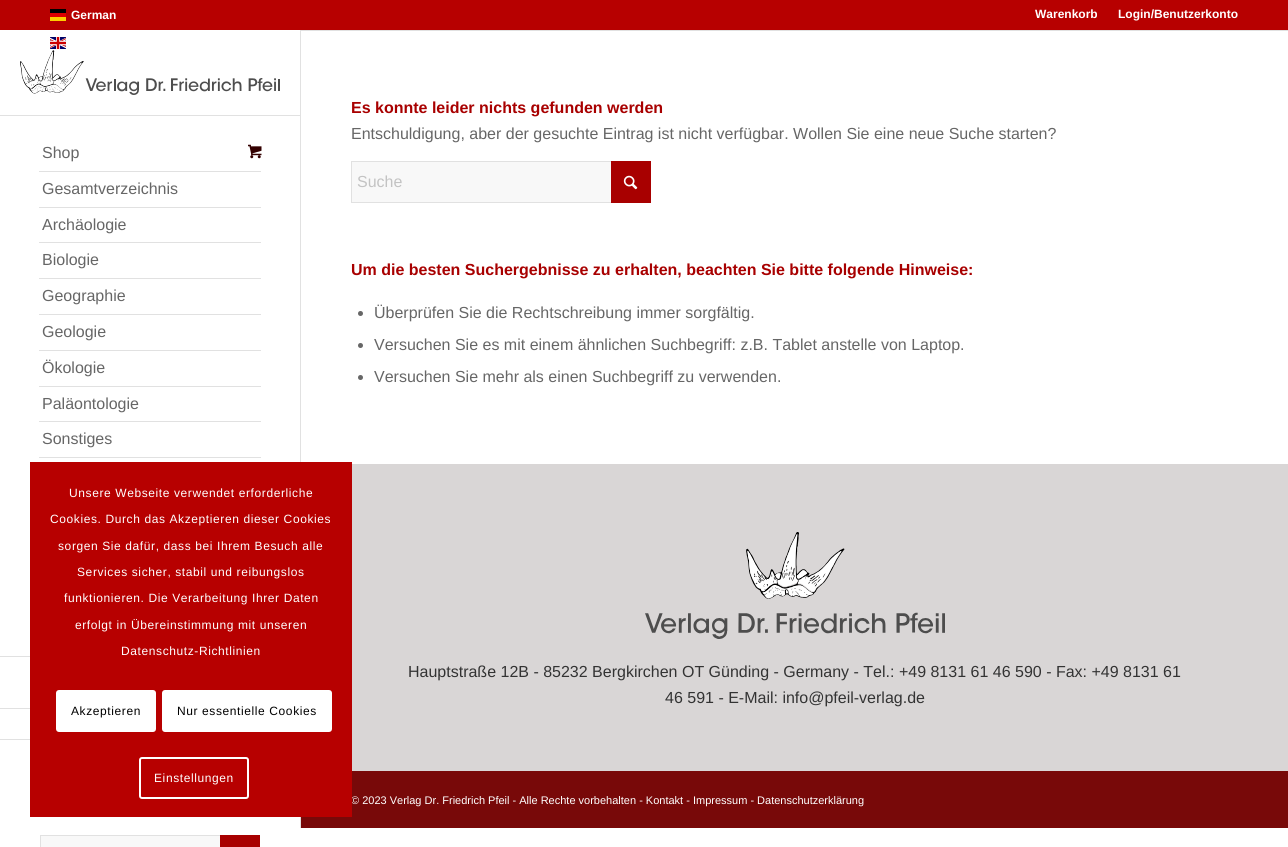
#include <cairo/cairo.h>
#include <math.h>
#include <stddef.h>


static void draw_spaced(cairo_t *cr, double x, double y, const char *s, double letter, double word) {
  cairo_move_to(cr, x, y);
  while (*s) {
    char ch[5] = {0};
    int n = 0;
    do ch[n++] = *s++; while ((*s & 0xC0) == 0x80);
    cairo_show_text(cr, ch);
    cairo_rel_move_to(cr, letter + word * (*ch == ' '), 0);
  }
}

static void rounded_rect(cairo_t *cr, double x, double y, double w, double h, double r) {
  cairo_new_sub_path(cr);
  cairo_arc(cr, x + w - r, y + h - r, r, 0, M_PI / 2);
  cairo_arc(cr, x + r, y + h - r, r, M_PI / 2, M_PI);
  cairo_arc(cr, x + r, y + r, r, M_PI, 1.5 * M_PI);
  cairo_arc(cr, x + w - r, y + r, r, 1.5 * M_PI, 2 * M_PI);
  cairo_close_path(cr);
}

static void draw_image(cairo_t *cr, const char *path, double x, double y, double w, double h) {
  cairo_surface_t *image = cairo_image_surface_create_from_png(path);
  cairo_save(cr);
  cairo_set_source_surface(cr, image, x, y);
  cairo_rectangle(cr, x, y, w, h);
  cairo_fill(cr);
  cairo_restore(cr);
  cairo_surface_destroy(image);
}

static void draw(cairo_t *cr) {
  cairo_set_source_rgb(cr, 1, 1, 1);
  cairo_paint(cr);
  cairo_set_source_rgb(cr, 183 / 255.0, 0, 0);
  cairo_rectangle(cr, 0, 0, 1288, 30);
  cairo_fill(cr);
  cairo_set_source_rgb(cr, 1, 206 / 255.0, 0);
  cairo_rectangle(cr, 50, 17, 16, 4);
  cairo_fill(cr);
  cairo_set_source_rgb(cr, 0, 0, 0);
  cairo_rectangle(cr, 50, 9, 16, 4);
  cairo_fill(cr);
  cairo_set_source_rgb(cr, 221 / 255.0, 0, 0);
  cairo_rectangle(cr, 50, 13, 16, 4);
  cairo_fill(cr);
  draw_image(cr, "images/1.png", 50, 37, 16, 12);
  cairo_set_source_rgb(cr, 225 / 255.0, 225 / 255.0, 225 / 255.0);
  cairo_rectangle(cr, 0, 115, 300, 1);
  cairo_fill(cr);
  draw_image(cr, "images/2.png", 20, 50, 260, 45);
  cairo_rectangle(cr, 39, 171, 222, 1);
  cairo_fill(cr);
  cairo_rectangle(cr, 39, 207, 222, 1);
  cairo_fill(cr);
  cairo_rectangle(cr, 39, 242, 222, 1);
  cairo_fill(cr);
  cairo_rectangle(cr, 39, 278, 222, 1);
  cairo_fill(cr);
  cairo_rectangle(cr, 39, 314, 222, 1);
  cairo_fill(cr);
  cairo_rectangle(cr, 39, 350, 222, 1);
  cairo_fill(cr);
  cairo_rectangle(cr, 39, 386, 222, 1);
  cairo_fill(cr);
  cairo_rectangle(cr, 39, 421, 222, 1);
  cairo_fill(cr);
  cairo_rectangle(cr, 39, 457, 222, 1);
  cairo_fill(cr);
  draw_image(cr, "images/3.png", 248, 144, 14, 15);
  cairo_rectangle(cr, 0, 656, 30, 1);
  cairo_fill(cr);
  cairo_rectangle(cr, 0, 708, 30, 1);
  cairo_fill(cr);
  cairo_rectangle(cr, 0, 739, 30, 1);
  cairo_fill(cr);
  cairo_set_source_rgb(cr, 248 / 255.0, 248 / 255.0, 248 / 255.0);
  cairo_rectangle(cr, 41, 836, 179, 11);
  cairo_fill(cr);
  cairo_rectangle(cr, 40.5, 835.5, 219, 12);
  cairo_set_source_rgb(cr, 225 / 255.0, 225 / 255.0, 225 / 255.0);
  cairo_set_line_width(cr, 1);
  cairo_stroke(cr);
  cairo_set_source_rgb(cr, 168 / 255.0, 0, 0);
  cairo_rectangle(cr, 220, 835, 40, 12);
  cairo_fill(cr);
  cairo_set_source_rgb(cr, 225 / 255.0, 225 / 255.0, 225 / 255.0);
  cairo_rectangle(cr, 300, 30, 1, 798);
  cairo_fill(cr);
  cairo_rectangle(cr, 301, 30, 987, 1);
  cairo_fill(cr);
  cairo_set_source_rgb(cr, 248 / 255.0, 248 / 255.0, 248 / 255.0);
  cairo_rectangle(cr, 352, 162, 259, 40);
  cairo_fill(cr);
  cairo_rectangle(cr, 351.5, 161.5, 299, 41);
  cairo_set_source_rgb(cr, 225 / 255.0, 225 / 255.0, 225 / 255.0);
  cairo_stroke(cr);
  cairo_set_source_rgb(cr, 168 / 255.0, 0, 0);
  cairo_rectangle(cr, 611, 161, 40, 42);
  cairo_fill(cr);
  draw_image(cr, "images/4.png", 623, 175, 15, 15);
  cairo_set_source_rgb(cr, 102 / 255.0, 102 / 255.0, 102 / 255.0);
  cairo_arc(cr, 360.5, 313.5, 2.5, 0, 2 * M_PI);
  cairo_fill(cr);
  cairo_arc(cr, 360.5, 345.5, 2.5, 0, 2 * M_PI);
  cairo_fill(cr);
  cairo_arc(cr, 360.5, 377.5, 2.5, 0, 2 * M_PI);
  cairo_fill(cr);
  cairo_set_source_rgb(cr, 217 / 255.0, 214 / 255.0, 214 / 255.0);
  cairo_rectangle(cr, 352, 464, 936, 307);
  cairo_fill(cr);
  draw_image(cr, "images/5.png", 645, 532, 300, 107);
  cairo_set_source_rgb(cr, 120 / 255.0, 9 / 255.0, 9 / 255.0);
  cairo_rectangle(cr, 301, 771, 987, 57);
  cairo_fill(cr);
  cairo_select_font_face(cr, "Liberation Sans", CAIRO_FONT_SLANT_NORMAL, CAIRO_FONT_WEIGHT_BOLD);
  cairo_set_font_size(cr, 12);
  cairo_set_source_rgb(cr, 1, 1, 1);
  cairo_move_to(cr, 71, 19);
  cairo_show_text(cr, "German");
  cairo_move_to(cr, 1035, 18);
  cairo_show_text(cr, "Warenkorb");
  cairo_move_to(cr, 1118, 18);
  cairo_show_text(cr, "Login/Benutzerkonto");
  cairo_select_font_face(cr, "Liberation Sans", CAIRO_FONT_SLANT_NORMAL, CAIRO_FONT_WEIGHT_NORMAL);
  cairo_set_font_size(cr, 16);
  cairo_set_source_rgb(cr, 102 / 255.0, 102 / 255.0, 102 / 255.0);
  cairo_move_to(cr, 42, 158);
  cairo_show_text(cr, "Shop");
  cairo_move_to(cr, 42, 194);
  cairo_show_text(cr, "Gesamtverzeichnis");
  cairo_move_to(cr, 42, 230);
  cairo_show_text(cr, "Archäologie");
  cairo_move_to(cr, 42, 265);
  cairo_show_text(cr, "Biologie");
  cairo_move_to(cr, 42, 301);
  cairo_show_text(cr, "Geographie");
  cairo_move_to(cr, 42, 337);
  cairo_show_text(cr, "Geologie");
  cairo_move_to(cr, 42, 373);
  cairo_show_text(cr, "Ökologie");
  cairo_move_to(cr, 42, 409);
  cairo_show_text(cr, "Paläontologie");
  cairo_move_to(cr, 42, 444);
  cairo_show_text(cr, "Sonstiges");
  cairo_select_font_face(cr, "Liberation Sans", CAIRO_FONT_SLANT_NORMAL, CAIRO_FONT_WEIGHT_BOLD);
  cairo_set_source_rgb(cr, 168 / 255.0, 0, 0);
  cairo_move_to(cr, 351, 113);
  cairo_show_text(cr, "Es konnte leider nichts gefunden werden");
  cairo_select_font_face(cr, "Liberation Sans", CAIRO_FONT_SLANT_NORMAL, CAIRO_FONT_WEIGHT_NORMAL);
  cairo_set_source_rgb(cr, 102 / 255.0, 102 / 255.0, 102 / 255.0);
  cairo_move_to(cr, 351, 139);
  cairo_show_text(cr, "Entschuldigung, aber der gesuchte Eintrag ist nicht verfügbar. Wollen Sie eine neue Suche starten?");
  cairo_set_source_rgb(cr, 195 / 255.0, 195 / 255.0, 195 / 255.0);
  cairo_move_to(cr, 357, 187);
  cairo_show_text(cr, "Suche");
  cairo_select_font_face(cr, "Liberation Sans", CAIRO_FONT_SLANT_NORMAL, CAIRO_FONT_WEIGHT_BOLD);
  cairo_set_source_rgb(cr, 168 / 255.0, 0, 0);
  cairo_move_to(cr, 351, 275);
  cairo_show_text(cr, "Um die besten Suchergebnisse zu erhalten, beachten Sie bitte folgende Hinweise:");
  cairo_select_font_face(cr, "Liberation Sans", CAIRO_FONT_SLANT_NORMAL, CAIRO_FONT_WEIGHT_NORMAL);
  cairo_set_source_rgb(cr, 102 / 255.0, 102 / 255.0, 102 / 255.0);
  cairo_move_to(cr, 374, 318);
  cairo_show_text(cr, "Überprüfen Sie die Rechtschreibung immer sorgfältig.");
  cairo_move_to(cr, 374, 350);
  cairo_show_text(cr, "Versuchen Sie es mit einem ähnlichen Suchbegriff: z.B. Tablet anstelle von Laptop.");
  cairo_move_to(cr, 374, 382);
  cairo_show_text(cr, "Versuchen Sie mehr als einen Suchbegriff zu verwenden.");
  cairo_set_source_rgb(cr, 51 / 255.0, 51 / 255.0, 51 / 255.0);
  cairo_move_to(cr, 408, 677);
  cairo_show_text(cr, "Hauptstraße 12B - 85232 Bergkirchen OT Günding - Germany - Tel.: +49 8131 61 46 590 - Fax: +49 8131 61");
  cairo_move_to(cr, 665, 703);
  cairo_show_text(cr, "46 591 - E-Mail: info@pfeil-verlag.de");
  cairo_set_font_size(cr, 11);
  cairo_set_source_rgb(cr, 1, 1, 1);
  cairo_move_to(cr, 351, 804);
  cairo_show_text(cr, "© 2023 Verlag Dr. Friedrich Pfeil - Alle Rechte vorbehalten - Kontakt - Impressum - Datenschutzerklärung");
  cairo_set_source_rgb(cr, 183 / 255.0, 0, 0);
  cairo_rectangle(cr, 30, 462, 322, 355);
  cairo_fill(cr);
  cairo_set_font_size(cr, 12);
  cairo_set_source_rgb(cr, 1, 1, 1);
  draw_spaced(cr, 69, 497, "Unsere Webseite verwendet erforderliche", 0.6, 0);
  draw_spaced(cr, 50, 523, "Cookies. Durch das Akzeptieren dieser Cookies", 0.6, 0);
  draw_spaced(cr, 58, 550, "sorgen Sie dafür, dass bei Ihrem Besuch alle", 0.6, 0);
  draw_spaced(cr, 77, 576, "Services sicher, stabil und reibungslos", 0.6, 0);
  draw_spaced(cr, 64, 602, "funktionieren. Die Verarbeitung Ihrer Daten", 0.6, 0);
  draw_spaced(cr, 75, 629, "erfolgt in Übereinstimmung mit unseren", 0.6, 0);
  draw_spaced(cr, 121, 655, "Datenschutz-Richtlinien", 0.6, 0);
  rounded_rect(cr, 56, 690, 100, 42, 3);
  cairo_fill(cr);
  cairo_set_source_rgb(cr, 0, 0, 0);
  draw_spaced(cr, 71, 715, "Akzeptieren", 0.6, 0);
  cairo_set_source_rgb(cr, 1, 1, 1);
  rounded_rect(cr, 162, 690, 170, 42, 3);
  cairo_fill(cr);
  cairo_set_source_rgb(cr, 0, 0, 0);
  draw_spaced(cr, 177, 715, "Nur essentielle Cookies", 0.6, 0);
  rounded_rect(cr, 140, 758, 108, 40, 2);
  cairo_set_source_rgb(cr, 1, 1, 1);
  cairo_set_line_width(cr, 2);
  cairo_stroke(cr);
  draw_spaced(cr, 154, 782, "Einstellungen", 0.6, 0);
}

int main(void) {
  cairo_surface_t *surface = cairo_image_surface_create(CAIRO_FORMAT_RGB24, 1288, 847);
  cairo_t *cr = cairo_create(surface);
  cairo_font_options_t *options = cairo_font_options_create();
  cairo_font_options_set_hint_metrics(options, CAIRO_HINT_METRICS_OFF);
  cairo_font_options_set_hint_style(options, CAIRO_HINT_STYLE_NONE);
  cairo_set_font_options(cr, options);
  cairo_set_miter_limit(cr, 4);
  draw(cr);
  cairo_surface_write_to_png(surface, "out.png");
  cairo_font_options_destroy(options);
  cairo_destroy(cr);
  cairo_surface_destroy(surface);
  return 0;
}
